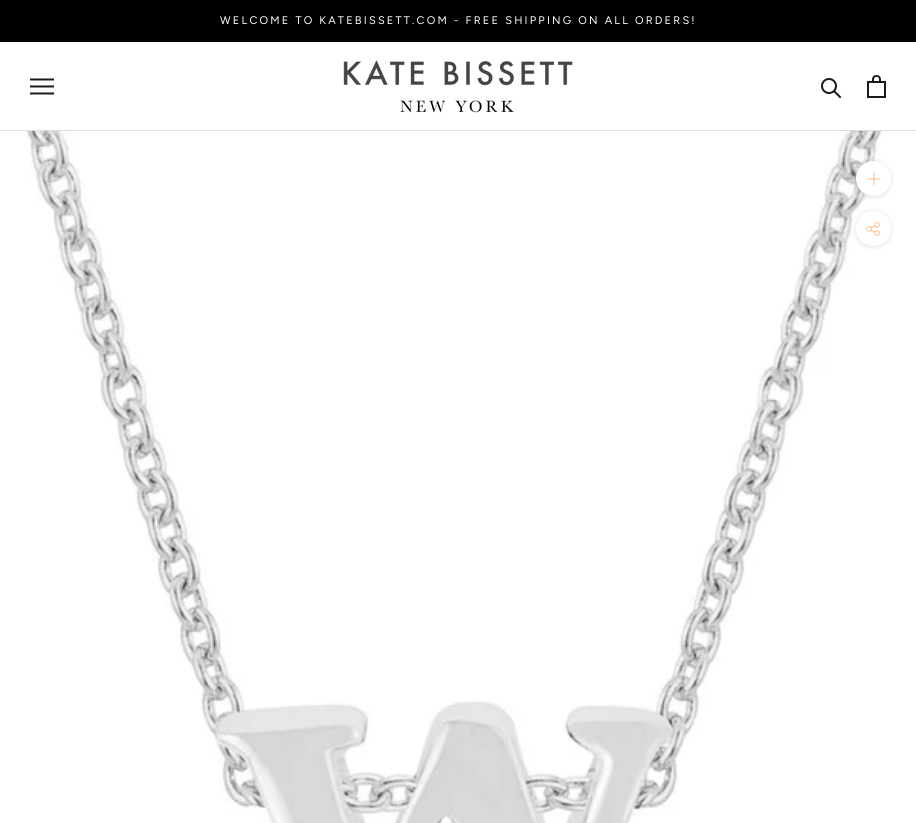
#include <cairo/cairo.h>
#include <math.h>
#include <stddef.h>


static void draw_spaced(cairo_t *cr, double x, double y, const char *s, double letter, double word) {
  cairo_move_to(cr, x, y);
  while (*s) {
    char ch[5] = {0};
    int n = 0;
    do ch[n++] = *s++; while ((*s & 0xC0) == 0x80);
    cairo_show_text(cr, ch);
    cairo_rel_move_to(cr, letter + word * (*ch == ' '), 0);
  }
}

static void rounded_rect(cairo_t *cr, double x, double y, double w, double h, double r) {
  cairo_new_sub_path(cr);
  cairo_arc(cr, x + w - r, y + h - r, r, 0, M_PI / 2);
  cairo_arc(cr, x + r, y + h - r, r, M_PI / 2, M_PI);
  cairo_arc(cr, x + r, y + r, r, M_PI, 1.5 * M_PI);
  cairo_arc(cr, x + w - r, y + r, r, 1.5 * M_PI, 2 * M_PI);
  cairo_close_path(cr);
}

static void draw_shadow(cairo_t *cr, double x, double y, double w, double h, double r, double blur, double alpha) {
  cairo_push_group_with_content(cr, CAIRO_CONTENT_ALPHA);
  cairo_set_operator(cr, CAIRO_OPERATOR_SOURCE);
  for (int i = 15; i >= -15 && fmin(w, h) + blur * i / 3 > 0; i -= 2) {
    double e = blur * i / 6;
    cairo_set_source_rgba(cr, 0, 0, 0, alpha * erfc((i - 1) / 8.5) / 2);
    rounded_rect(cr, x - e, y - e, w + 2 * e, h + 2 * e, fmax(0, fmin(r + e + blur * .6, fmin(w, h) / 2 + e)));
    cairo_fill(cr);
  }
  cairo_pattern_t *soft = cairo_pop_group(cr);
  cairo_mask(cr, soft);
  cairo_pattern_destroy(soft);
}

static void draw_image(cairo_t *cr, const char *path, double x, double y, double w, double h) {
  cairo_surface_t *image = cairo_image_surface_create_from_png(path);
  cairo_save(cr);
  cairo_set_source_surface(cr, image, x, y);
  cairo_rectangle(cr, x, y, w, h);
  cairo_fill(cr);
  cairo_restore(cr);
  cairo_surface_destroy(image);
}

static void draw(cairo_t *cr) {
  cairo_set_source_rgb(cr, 1, 1, 1);
  cairo_paint(cr);
  cairo_set_source_rgb(cr, 0, 0, 0);
  cairo_rectangle(cr, 0, 0, 916, 42);
  cairo_fill(cr);
  cairo_set_source_rgb(cr, 221 / 255.0, 221 / 255.0, 221 / 255.0);
  cairo_rectangle(cr, 0, 130, 916, 1);
  cairo_fill(cr);
  draw_image(cr, "images/1.png", 30, 78, 24, 17);
  draw_image(cr, "images/2.png", 343, 60, 230, 53);
  cairo_new_path(cr);
  cairo_move_to(cr, 840, 97);
  cairo_line_to(cr, 834.5, 91.5);
  cairo_set_source_rgb(cr, 28 / 255.0, 27 / 255.0, 27 / 255.0);
  cairo_set_line_cap(cr, CAIRO_LINE_CAP_SQUARE);
  cairo_stroke(cr);
  cairo_arc(cr, 829, 86, 7, 0, 2 * M_PI);
  cairo_set_line_cap(cr, CAIRO_LINE_CAP_BUTT);
  cairo_stroke(cr);
  draw_image(cr, "images/3.png", 867, 75, 19, 23);
  draw_image(cr, "images/4.png", 26, 131, 856, 692);
  cairo_set_source_rgb(cr, 54 / 255.0, 54 / 255.0, 54 / 255.0);
  draw_shadow(cr, 856, 162, 35, 35, 17.5, 2.5, 0.15);
  cairo_set_source_rgb(cr, 1, 1, 1);
  cairo_arc(cr, 873.5, 178.5, 17.5, 0, 2 * M_PI);
  cairo_fill(cr);
  cairo_new_path(cr);
  cairo_move_to(cr, 874, 173);
  cairo_line_to(cr, 874, 185);
  cairo_set_source_rgb(cr, 1, 186 / 255.0, 128 / 255.0);
  cairo_set_line_width(cr, 0.9);
  cairo_set_line_cap(cr, CAIRO_LINE_CAP_SQUARE);
  cairo_stroke(cr);
  cairo_new_path(cr);
  cairo_move_to(cr, 868, 179);
  cairo_line_to(cr, 880, 179);
  cairo_set_source_rgba(cr, 1, 116 / 255.0, 0, 0.5);
  cairo_stroke(cr);
  cairo_set_source_rgb(cr, 54 / 255.0, 54 / 255.0, 54 / 255.0);
  draw_shadow(cr, 856, 212, 35, 35, 17.5, 2.5, 0.15);
  cairo_set_source_rgb(cr, 1, 1, 1);
  cairo_arc(cr, 873.5, 228.5, 17.5, 0, 2 * M_PI);
  cairo_fill(cr);
  draw_image(cr, "images/5.png", 866, 222, 14, 14);
  cairo_select_font_face(cr, "Figtree", CAIRO_FONT_SLANT_NORMAL, CAIRO_FONT_WEIGHT_NORMAL);
  cairo_set_font_size(cr, 11);
  draw_spaced(cr, 220, 24, "WELCOME TO KATEBISSETT.COM - FREE SHIPPING ON ALL ORDERS!", 2.2, 0);
}

int main(void) {
  cairo_surface_t *surface = cairo_image_surface_create(CAIRO_FORMAT_RGB24, 916, 823);
  cairo_t *cr = cairo_create(surface);
  cairo_font_options_t *options = cairo_font_options_create();
  cairo_font_options_set_hint_metrics(options, CAIRO_HINT_METRICS_OFF);
  cairo_font_options_set_hint_style(options, CAIRO_HINT_STYLE_NONE);
  cairo_set_font_options(cr, options);
  cairo_set_miter_limit(cr, 4);
  draw(cr);
  cairo_surface_write_to_png(surface, "out.png");
  cairo_font_options_destroy(options);
  cairo_destroy(cr);
  cairo_surface_destroy(surface);
  return 0;
}
